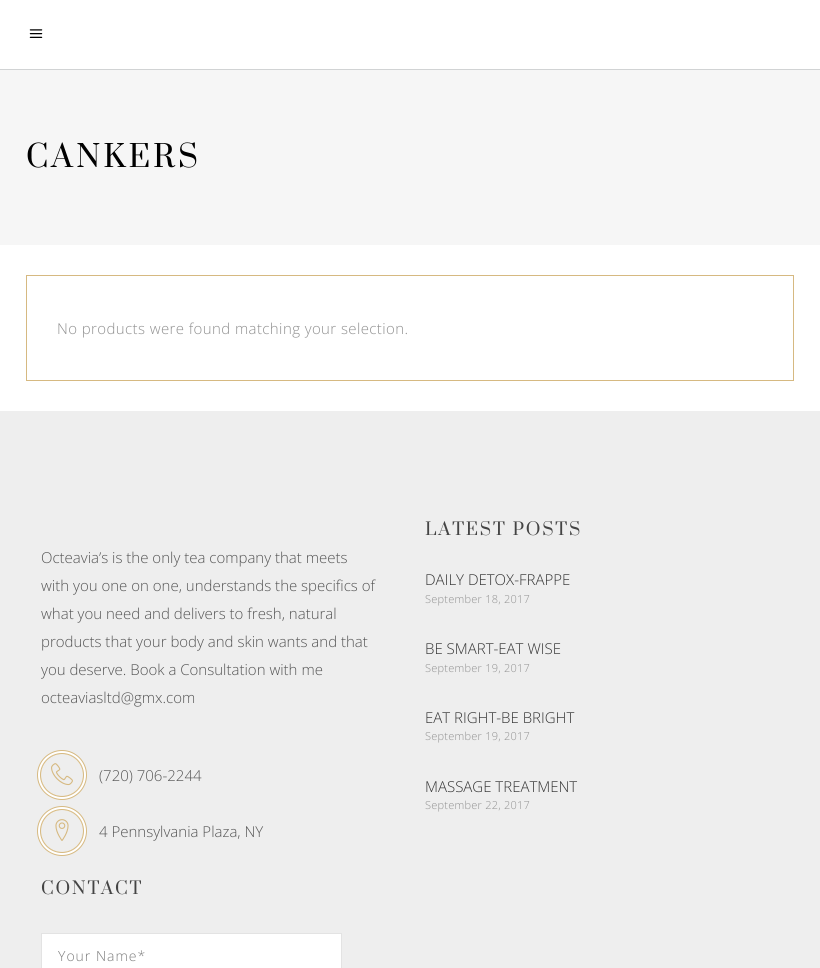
#include <cairo/cairo.h>
#include <math.h>
#include <stddef.h>


static void draw_spaced(cairo_t *cr, double x, double y, const char *s, double letter, double word) {
  cairo_move_to(cr, x, y);
  while (*s) {
    char ch[5] = {0};
    int n = 0;
    do ch[n++] = *s++; while ((*s & 0xC0) == 0x80);
    cairo_show_text(cr, ch);
    cairo_rel_move_to(cr, letter + word * (*ch == ' '), 0);
  }
}

static void draw_image(cairo_t *cr, const char *path, double x, double y, double w, double h) {
  cairo_surface_t *image = cairo_image_surface_create_from_png(path);
  cairo_save(cr);
  cairo_set_source_surface(cr, image, x, y);
  cairo_rectangle(cr, x, y, w, h);
  cairo_fill(cr);
  cairo_restore(cr);
  cairo_surface_destroy(image);
}

static void draw(cairo_t *cr) {
  cairo_set_source_rgb(cr, 1, 1, 1);
  cairo_paint(cr);
  cairo_set_source_rgb(cr, 209 / 255.0, 211 / 255.0, 212 / 255.0);
  cairo_rectangle(cr, 0, 69, 820, 1);
  cairo_fill(cr);
  draw_image(cr, "images/1.png", 29, 29, 14, 9);
  cairo_set_source_rgb(cr, 246 / 255.0, 246 / 255.0, 246 / 255.0);
  cairo_rectangle(cr, 0, 70, 820, 175);
  cairo_fill(cr);
  cairo_rectangle(cr, 26.5, 275.5, 767, 105);
  cairo_set_source_rgb(cr, 214 / 255.0, 185 / 255.0, 129 / 255.0);
  cairo_set_line_width(cr, 1);
  cairo_stroke(cr);
  cairo_set_source_rgb(cr, 238 / 255.0, 238 / 255.0, 238 / 255.0);
  cairo_rectangle(cr, 0, 411, 820, 557);
  cairo_fill(cr);
  draw_image(cr, "images/2.png", 51, 763, 22, 23);
  cairo_arc(cr, 62, 775, 23, 0, 2 * M_PI);
  cairo_set_source_rgb(cr, 214 / 255.0, 185 / 255.0, 129 / 255.0);
  cairo_set_line_width(cr, 4);
  cairo_stroke(cr);
  cairo_arc(cr, 62, 775, 22.5, 0, 2 * M_PI);
  cairo_set_source_rgb(cr, 1, 1, 1);
  cairo_set_line_width(cr, 3);
  cairo_stroke(cr);
  cairo_arc(cr, 62, 775, 21.5, 0, 2 * M_PI);
  cairo_set_source_rgb(cr, 214 / 255.0, 185 / 255.0, 129 / 255.0);
  cairo_set_line_width(cr, 1);
  cairo_stroke(cr);
  draw_image(cr, "images/3.png", 55, 819, 14, 22);
  cairo_arc(cr, 62, 831, 23, 0, 2 * M_PI);
  cairo_set_line_width(cr, 4);
  cairo_stroke(cr);
  cairo_arc(cr, 62, 831, 22.5, 0, 2 * M_PI);
  cairo_set_source_rgb(cr, 1, 1, 1);
  cairo_set_line_width(cr, 3);
  cairo_stroke(cr);
  cairo_arc(cr, 62, 831, 21.5, 0, 2 * M_PI);
  cairo_set_source_rgb(cr, 214 / 255.0, 185 / 255.0, 129 / 255.0);
  cairo_set_line_width(cr, 1);
  cairo_stroke(cr);
  cairo_set_source_rgb(cr, 1, 1, 1);
  cairo_rectangle(cr, 41.5, 933.5, 300, 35);
  cairo_fill_preserve(cr);
  cairo_set_source_rgb(cr, 227 / 255.0, 227 / 255.0, 227 / 255.0);
  cairo_stroke(cr);
  cairo_select_font_face(cr, "Prata", CAIRO_FONT_SLANT_NORMAL, CAIRO_FONT_WEIGHT_NORMAL);
  cairo_set_font_size(cr, 30);
  cairo_set_source_rgb(cr, 0, 0, 0);
  draw_spaced(cr, 26, 167, "CANKERS", 3, 0);
  cairo_select_font_face(cr, "Open Sans Light", CAIRO_FONT_SLANT_NORMAL, CAIRO_FONT_WEIGHT_NORMAL);
  cairo_set_font_size(cr, 15);
  cairo_set_source_rgb(cr, 144 / 255.0, 144 / 255.0, 144 / 255.0);
  draw_spaced(cr, 57, 334, "No products were found matching your selection.", 0.4, 0);
  cairo_set_source_rgb(cr, 85 / 255.0, 85 / 255.0, 85 / 255.0);
  cairo_move_to(cr, 41, 563);
  cairo_show_text(cr, "Octeavia’s is the only tea company that meets");
  cairo_move_to(cr, 41, 591);
  cairo_show_text(cr, "with you one on one, understands the specifics of");
  cairo_move_to(cr, 41, 619);
  cairo_show_text(cr, "what you need and delivers to fresh, natural");
  cairo_move_to(cr, 41, 647);
  cairo_show_text(cr, "products that your body and skin wants and that");
  cairo_move_to(cr, 41, 675);
  cairo_show_text(cr, "you deserve. Book a Consultation with me");
  cairo_move_to(cr, 41, 703);
  cairo_show_text(cr, "octeaviasltd@gmx.com");
  cairo_move_to(cr, 99, 781);
  cairo_show_text(cr, "(720) 706-2244");
  cairo_move_to(cr, 99, 837);
  cairo_show_text(cr, "4 Pennsylvania Plaza, NY");
  cairo_select_font_face(cr, "Prata", CAIRO_FONT_SLANT_NORMAL, CAIRO_FONT_WEIGHT_NORMAL);
  cairo_set_font_size(cr, 17);
  cairo_set_source_rgb(cr, 68 / 255.0, 68 / 255.0, 68 / 255.0);
  draw_spaced(cr, 425, 535, "LATEST POSTS", 1.75, 0);
  cairo_select_font_face(cr, "Open Sans Light", CAIRO_FONT_SLANT_NORMAL, CAIRO_FONT_WEIGHT_NORMAL);
  cairo_set_font_size(cr, 15);
  cairo_set_source_rgb(cr, 51 / 255.0, 51 / 255.0, 51 / 255.0);
  cairo_move_to(cr, 425, 585);
  cairo_show_text(cr, "DAILY DETOX-FRAPPE");
  cairo_set_font_size(cr, 11);
  cairo_set_source_rgb(cr, 144 / 255.0, 144 / 255.0, 144 / 255.0);
  draw_spaced(cr, 425, 603, "September 18, 2017", 0.25, 0);
  cairo_set_font_size(cr, 15);
  cairo_set_source_rgb(cr, 51 / 255.0, 51 / 255.0, 51 / 255.0);
  cairo_move_to(cr, 425, 654);
  cairo_show_text(cr, "BE SMART-EAT WISE");
  cairo_set_font_size(cr, 11);
  cairo_set_source_rgb(cr, 144 / 255.0, 144 / 255.0, 144 / 255.0);
  draw_spaced(cr, 425, 672, "September 19, 2017", 0.25, 0);
  cairo_set_font_size(cr, 15);
  cairo_set_source_rgb(cr, 51 / 255.0, 51 / 255.0, 51 / 255.0);
  cairo_move_to(cr, 425, 723);
  cairo_show_text(cr, "EAT RIGHT-BE BRIGHT");
  cairo_set_font_size(cr, 11);
  cairo_set_source_rgb(cr, 144 / 255.0, 144 / 255.0, 144 / 255.0);
  draw_spaced(cr, 425, 740, "September 19, 2017", 0.25, 0);
  cairo_set_font_size(cr, 15);
  cairo_set_source_rgb(cr, 51 / 255.0, 51 / 255.0, 51 / 255.0);
  cairo_move_to(cr, 425, 792);
  cairo_show_text(cr, "MASSAGE TREATMENT");
  cairo_set_font_size(cr, 11);
  cairo_set_source_rgb(cr, 144 / 255.0, 144 / 255.0, 144 / 255.0);
  draw_spaced(cr, 425, 809, "September 22, 2017", 0.25, 0);
  cairo_select_font_face(cr, "Prata", CAIRO_FONT_SLANT_NORMAL, CAIRO_FONT_WEIGHT_NORMAL);
  cairo_set_font_size(cr, 17);
  cairo_set_source_rgb(cr, 68 / 255.0, 68 / 255.0, 68 / 255.0);
  draw_spaced(cr, 41, 894, "CONTACT", 1.75, 0);
  cairo_select_font_face(cr, "Open Sans Light", CAIRO_FONT_SLANT_NORMAL, CAIRO_FONT_WEIGHT_NORMAL);
  cairo_set_font_size(cr, 14);
  cairo_set_source_rgb(cr, 124 / 255.0, 124 / 255.0, 124 / 255.0);
  draw_spaced(cr, 58, 961, "Your Name*", 1, 0);
}

int main(void) {
  cairo_surface_t *surface = cairo_image_surface_create(CAIRO_FORMAT_RGB24, 820, 968);
  cairo_t *cr = cairo_create(surface);
  cairo_font_options_t *options = cairo_font_options_create();
  cairo_font_options_set_hint_metrics(options, CAIRO_HINT_METRICS_OFF);
  cairo_font_options_set_hint_style(options, CAIRO_HINT_STYLE_NONE);
  cairo_set_font_options(cr, options);
  cairo_set_miter_limit(cr, 4);
  draw(cr);
  cairo_surface_write_to_png(surface, "out.png");
  cairo_font_options_destroy(options);
  cairo_destroy(cr);
  cairo_surface_destroy(surface);
  return 0;
}
